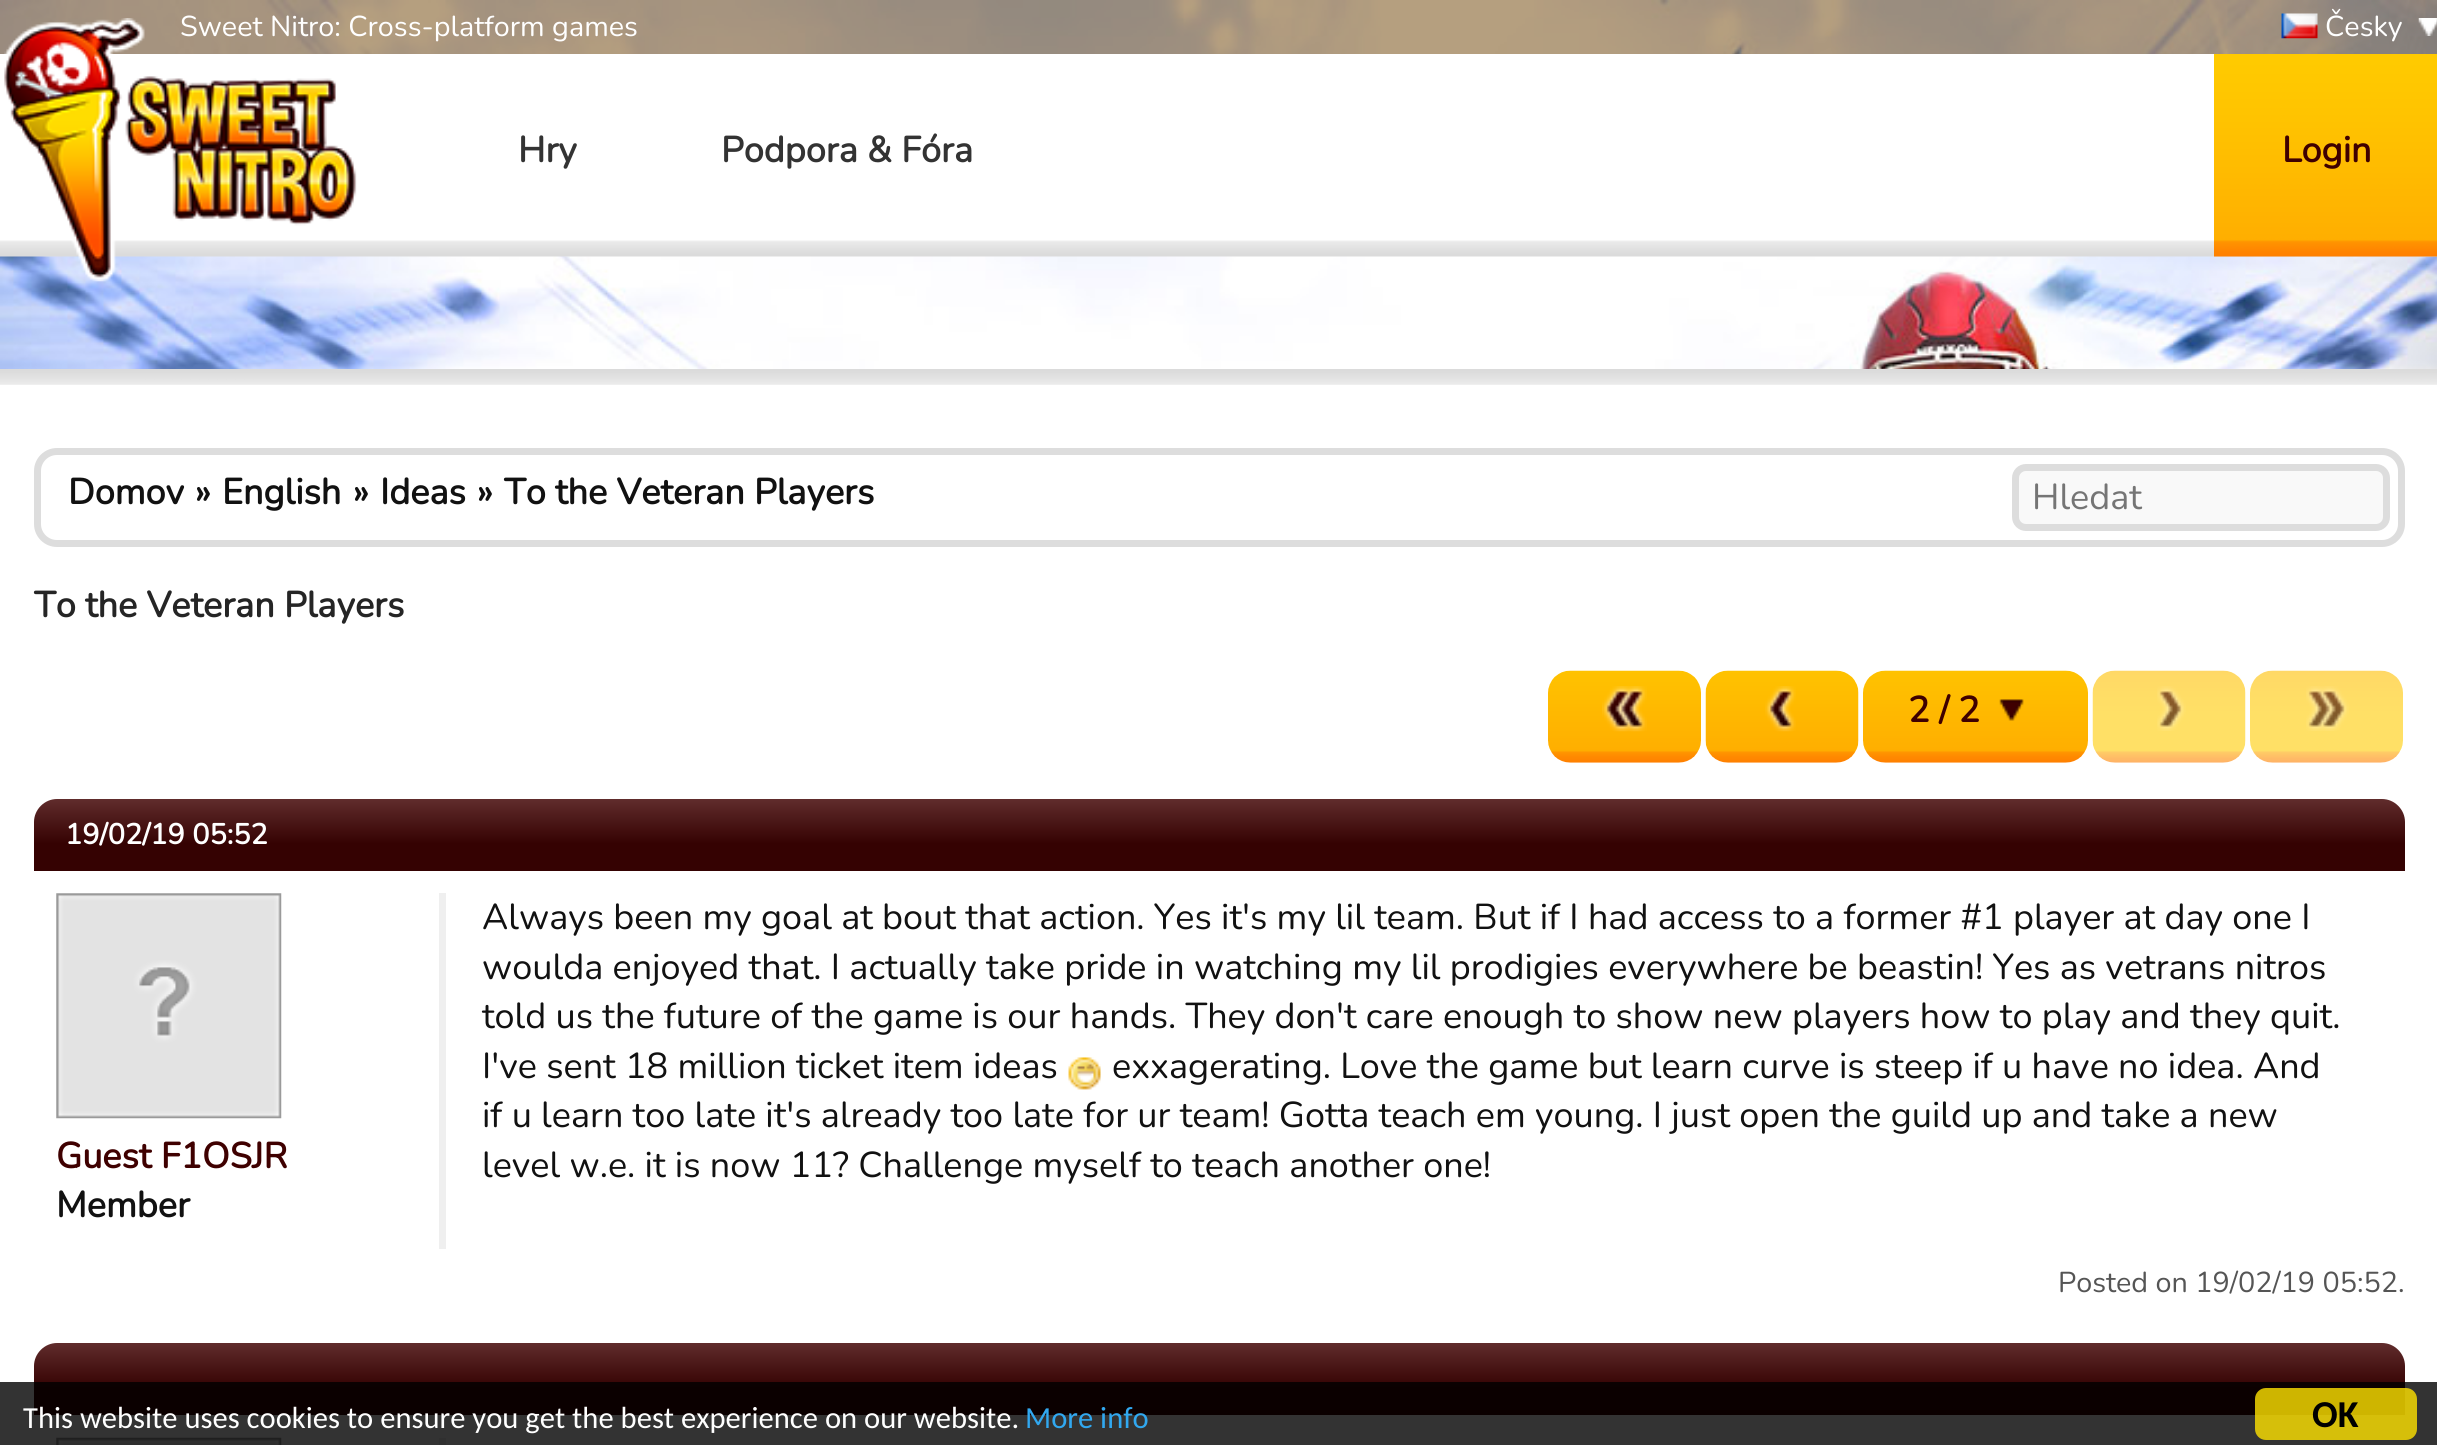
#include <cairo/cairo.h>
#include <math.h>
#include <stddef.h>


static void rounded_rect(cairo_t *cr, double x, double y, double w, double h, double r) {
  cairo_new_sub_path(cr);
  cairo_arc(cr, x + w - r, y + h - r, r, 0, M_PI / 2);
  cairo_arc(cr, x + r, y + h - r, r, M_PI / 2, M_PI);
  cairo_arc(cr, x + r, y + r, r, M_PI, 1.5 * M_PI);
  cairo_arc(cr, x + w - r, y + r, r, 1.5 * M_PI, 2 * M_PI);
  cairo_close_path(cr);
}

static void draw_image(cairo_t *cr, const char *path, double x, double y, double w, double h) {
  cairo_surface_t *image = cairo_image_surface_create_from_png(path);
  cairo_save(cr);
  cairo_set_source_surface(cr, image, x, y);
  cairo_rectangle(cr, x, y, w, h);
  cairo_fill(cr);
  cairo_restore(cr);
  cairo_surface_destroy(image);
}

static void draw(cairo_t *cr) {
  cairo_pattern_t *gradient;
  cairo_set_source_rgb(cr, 1, 1, 1);
  cairo_paint(cr);
  draw_image(cr, "images/1.png", 0, 0, 2437, 369);
  cairo_set_source_rgba(cr, 109 / 255.0, 64 / 255.0, 0, 0.5);
  cairo_rectangle(cr, 0, 0, 2437, 54);
  cairo_fill(cr);
  draw_image(cr, "images/2.png", 2418, 18, 19, 18);
  draw_image(cr, "images/3.png", 2281, 13, 37, 26);
  draw_image(cr, "images/4.png", 0, 54, 2437, 203);
  draw_image(cr, "images/6.png", 2214, 54, 223, 203);
  draw_image(cr, "images/7.png", 0, 369, 2437, 16);
  rounded_rect(cr, 37.5, 451.5, 2364, 92, 19.5);
  cairo_set_source_rgb(cr, 221 / 255.0, 221 / 255.0, 221 / 255.0);
  cairo_set_line_width(cr, 7);
  cairo_stroke(cr);
  cairo_set_source_rgb(cr, 249 / 255.0, 249 / 255.0, 249 / 255.0);
  rounded_rect(cr, 2015.5, 467.5, 371, 60, 10.5);
  cairo_fill_preserve(cr);
  cairo_set_source_rgb(cr, 221 / 255.0, 221 / 255.0, 221 / 255.0);
  cairo_stroke(cr);
  draw_image(cr, "images/8.png", 1548, 670, 153, 93);
  draw_image(cr, "images/9.png", 1602, 686, 45, 46);
  draw_image(cr, "images/10.png", 1705, 670, 154, 93);
  draw_image(cr, "images/11.png", 1765, 686, 31, 46);
  draw_image(cr, "images/12.png", 1863, 670, 225, 93);
  draw_image(cr, "images/13.png", 1999, 699, 25, 22);
  draw_image(cr, "images/14.png", 2092, 670, 154, 93);
  draw_image(cr, "images/15.png", 2157, 686, 29, 45);
  draw_image(cr, "images/16.png", 2250, 670, 153, 93);
  draw_image(cr, "images/17.png", 2306, 686, 43, 45);
  gradient = cairo_pattern_create_linear(1220, 799, 1220, 871);
  cairo_pattern_add_color_stop_rgba(gradient, 0, 96 / 255.0, 44 / 255.0, 44 / 255.0, 1);
  cairo_pattern_add_color_stop_rgba(gradient, 0.62, 53 / 255.0, 2 / 255.0, 2 / 255.0, 1);
  cairo_set_source(cr, gradient);
  cairo_pattern_destroy(gradient);
  cairo_new_path(cr);
  cairo_move_to(cr, 57, 799);
  cairo_line_to(cr, 2382, 799);
  cairo_curve_to(cr, 2394.5, 799, 2405, 809.5, 2405, 822);
  cairo_line_to(cr, 2405, 871);
  cairo_line_to(cr, 34, 871);
  cairo_line_to(cr, 34, 822);
  cairo_curve_to(cr, 34, 809.5, 44.5, 799, 57, 799);
  cairo_close_path(cr);
  cairo_fill(cr);
  draw_image(cr, "images/18.png", 56, 893, 226, 226);
  cairo_set_source_rgb(cr, 239 / 255.0, 239 / 255.0, 239 / 255.0);
  cairo_rectangle(cr, 439, 893, 7, 356);
  cairo_fill(cr);
  draw_image(cr, "images/19.png", 1068, 1057, 33, 33);
  gradient = cairo_pattern_create_linear(1220, 1343, 1220, 1415);
  cairo_pattern_add_color_stop_rgba(gradient, 0, 96 / 255.0, 44 / 255.0, 44 / 255.0, 1);
  cairo_pattern_add_color_stop_rgba(gradient, 0.62, 53 / 255.0, 2 / 255.0, 2 / 255.0, 1);
  cairo_set_source(cr, gradient);
  cairo_pattern_destroy(gradient);
  cairo_new_path(cr);
  cairo_move_to(cr, 57, 1343);
  cairo_line_to(cr, 2382, 1343);
  cairo_curve_to(cr, 2394.5, 1343, 2405, 1353.5, 2405, 1366);
  cairo_line_to(cr, 2405, 1415);
  cairo_line_to(cr, 34, 1415);
  cairo_line_to(cr, 34, 1366);
  cairo_curve_to(cr, 34, 1353.5, 44.5, 1343, 57, 1343);
  cairo_close_path(cr);
  cairo_fill(cr);
  draw_image(cr, "images/20.png", 56, 1437, 226, 8);
  cairo_set_source_rgb(cr, 239 / 255.0, 239 / 255.0, 239 / 255.0);
  cairo_rectangle(cr, 439, 1438, 7, 7);
  cairo_fill(cr);
  cairo_set_source_rgba(cr, 0, 0, 0, 0.8);
  cairo_rectangle(cr, 0, 1382, 2437, 63);
  cairo_fill(cr);
  cairo_set_source_rgba(cr, 1, 226 / 255.0, 0, 0.8);
  rounded_rect(cr, 2255, 1388, 162, 52, 11);
  cairo_fill(cr);
  cairo_select_font_face(cr, "Nunito ExtraLight", CAIRO_FONT_SLANT_NORMAL, CAIRO_FONT_WEIGHT_NORMAL);
  cairo_set_font_size(cr, 28.75);
  cairo_set_source_rgb(cr, 1, 1, 1);
  cairo_move_to(cr, 180, 36);
  cairo_show_text(cr, "Sweet Nitro: Cross-platform games");
  cairo_move_to(cr, 2325, 36);
  cairo_show_text(cr, "Česky");
  draw_image(cr, "images/5.png", 4, 18, 353, 264);
  cairo_select_font_face(cr, "Nunito", CAIRO_FONT_SLANT_NORMAL, CAIRO_FONT_WEIGHT_BOLD);
  cairo_set_font_size(cr, 36);
  cairo_set_source_rgb(cr, 51 / 255.0, 51 / 255.0, 51 / 255.0);
  cairo_move_to(cr, 518, 162);
  cairo_show_text(cr, "Hry");
  cairo_move_to(cr, 721, 162);
  cairo_show_text(cr, "Podpora & Fóra");
  cairo_set_source_rgb(cr, 63 / 255.0, 0, 0);
  cairo_move_to(cr, 2282, 162);
  cairo_show_text(cr, "Login");
  cairo_set_source_rgb(cr, 17 / 255.0, 17 / 255.0, 17 / 255.0);
  cairo_move_to(cr, 68, 504);
  cairo_show_text(cr, "Domov");
  cairo_move_to(cr, 195, 504);
  cairo_show_text(cr, "»");
  cairo_move_to(cr, 222, 504);
  cairo_show_text(cr, "English");
  cairo_move_to(cr, 353, 504);
  cairo_show_text(cr, "»");
  cairo_move_to(cr, 380, 504);
  cairo_show_text(cr, "Ideas");
  cairo_move_to(cr, 477, 504);
  cairo_show_text(cr, "»");
  cairo_move_to(cr, 504, 504);
  cairo_show_text(cr, "To the Veteran Players");
  cairo_select_font_face(cr, "Nunito ExtraLight", CAIRO_FONT_SLANT_NORMAL, CAIRO_FONT_WEIGHT_NORMAL);
  cairo_set_source_rgb(cr, 117 / 255.0, 117 / 255.0, 117 / 255.0);
  cairo_move_to(cr, 2032, 509);
  cairo_show_text(cr, "Hledat");
  cairo_select_font_face(cr, "Nunito", CAIRO_FONT_SLANT_NORMAL, CAIRO_FONT_WEIGHT_BOLD);
  cairo_set_source_rgb(cr, 37 / 255.0, 37 / 255.0, 37 / 255.0);
  cairo_move_to(cr, 34, 617);
  cairo_show_text(cr, "To the Veteran Players");
  cairo_set_source_rgb(cr, 63 / 255.0, 0, 0);
  cairo_move_to(cr, 1908, 722);
  cairo_show_text(cr, "2 / 2");
  cairo_set_font_size(cr, 28.75);
  cairo_set_source_rgb(cr, 1, 1, 1);
  cairo_move_to(cr, 65, 844);
  cairo_show_text(cr, "19/02/19 05:52");
  cairo_set_font_size(cr, 36);
  cairo_set_source_rgb(cr, 63 / 255.0, 0, 0);
  cairo_move_to(cr, 56, 1168);
  cairo_show_text(cr, "Guest F1OSJR");
  cairo_set_source_rgb(cr, 17 / 255.0, 17 / 255.0, 17 / 255.0);
  cairo_move_to(cr, 56, 1217);
  cairo_show_text(cr, "Member");
  cairo_select_font_face(cr, "Nunito ExtraLight", CAIRO_FONT_SLANT_NORMAL, CAIRO_FONT_WEIGHT_NORMAL);
  cairo_move_to(cr, 482, 929);
  cairo_show_text(cr, "Always been my goal at bout that action. Yes it's my lil team. But if I had access to a former #1 player at day one I");
  cairo_move_to(cr, 482, 979);
  cairo_show_text(cr, "woulda enjoyed that. I actually take pride in watching my lil prodigies everywhere be beastin! Yes as vetrans nitros");
  cairo_move_to(cr, 482, 1028);
  cairo_show_text(cr, "told us the future of the game is our hands. They don't care enough to show new players how to play and they quit.");
  cairo_move_to(cr, 482, 1078);
  cairo_show_text(cr, "I've sent 18 million ticket item ideas");
  cairo_move_to(cr, 1112, 1078);
  cairo_show_text(cr, "exxagerating. Love the game but learn curve is steep if u have no idea. And");
  cairo_move_to(cr, 482, 1127);
  cairo_show_text(cr, "if u learn too late it's already too late for ur team! Gotta teach em young. I just open the guild up and take a new");
  cairo_move_to(cr, 482, 1177);
  cairo_show_text(cr, "level w.e. it is now 11? Challenge myself to teach another one!");
  cairo_set_font_size(cr, 28.75);
  cairo_set_source_rgb(cr, 85 / 255.0, 85 / 255.0, 85 / 255.0);
  cairo_move_to(cr, 2058, 1292);
  cairo_show_text(cr, "Posted on 19/02/19 05:52.");
  cairo_select_font_face(cr, "Carlito", CAIRO_FONT_SLANT_NORMAL, CAIRO_FONT_WEIGHT_NORMAL);
  cairo_set_font_size(cr, 30.6);
  cairo_set_source_rgb(cr, 1, 1, 1);
  cairo_move_to(cr, 23, 1428);
  cairo_show_text(cr, "This website uses cookies to ensure you get the best experience on our website.");
  cairo_set_source_rgb(cr, 49 / 255.0, 168 / 255.0, 240 / 255.0);
  cairo_move_to(cr, 1025, 1428);
  cairo_show_text(cr, "More info");
  cairo_select_font_face(cr, "Carlito", CAIRO_FONT_SLANT_NORMAL, CAIRO_FONT_WEIGHT_BOLD);
  cairo_set_font_size(cr, 38);
  cairo_set_source_rgb(cr, 0, 0, 0);
  cairo_move_to(cr, 2312, 1427);
  cairo_show_text(cr, "OK");
}

int main(void) {
  cairo_surface_t *surface = cairo_image_surface_create(CAIRO_FORMAT_RGB24, 2437, 1445);
  cairo_t *cr = cairo_create(surface);
  cairo_font_options_t *options = cairo_font_options_create();
  cairo_font_options_set_hint_metrics(options, CAIRO_HINT_METRICS_OFF);
  cairo_font_options_set_hint_style(options, CAIRO_HINT_STYLE_NONE);
  cairo_set_font_options(cr, options);
  cairo_set_miter_limit(cr, 4);
  draw(cr);
  cairo_surface_write_to_png(surface, "out.png");
  cairo_font_options_destroy(options);
  cairo_destroy(cr);
  cairo_surface_destroy(surface);
  return 0;
}
